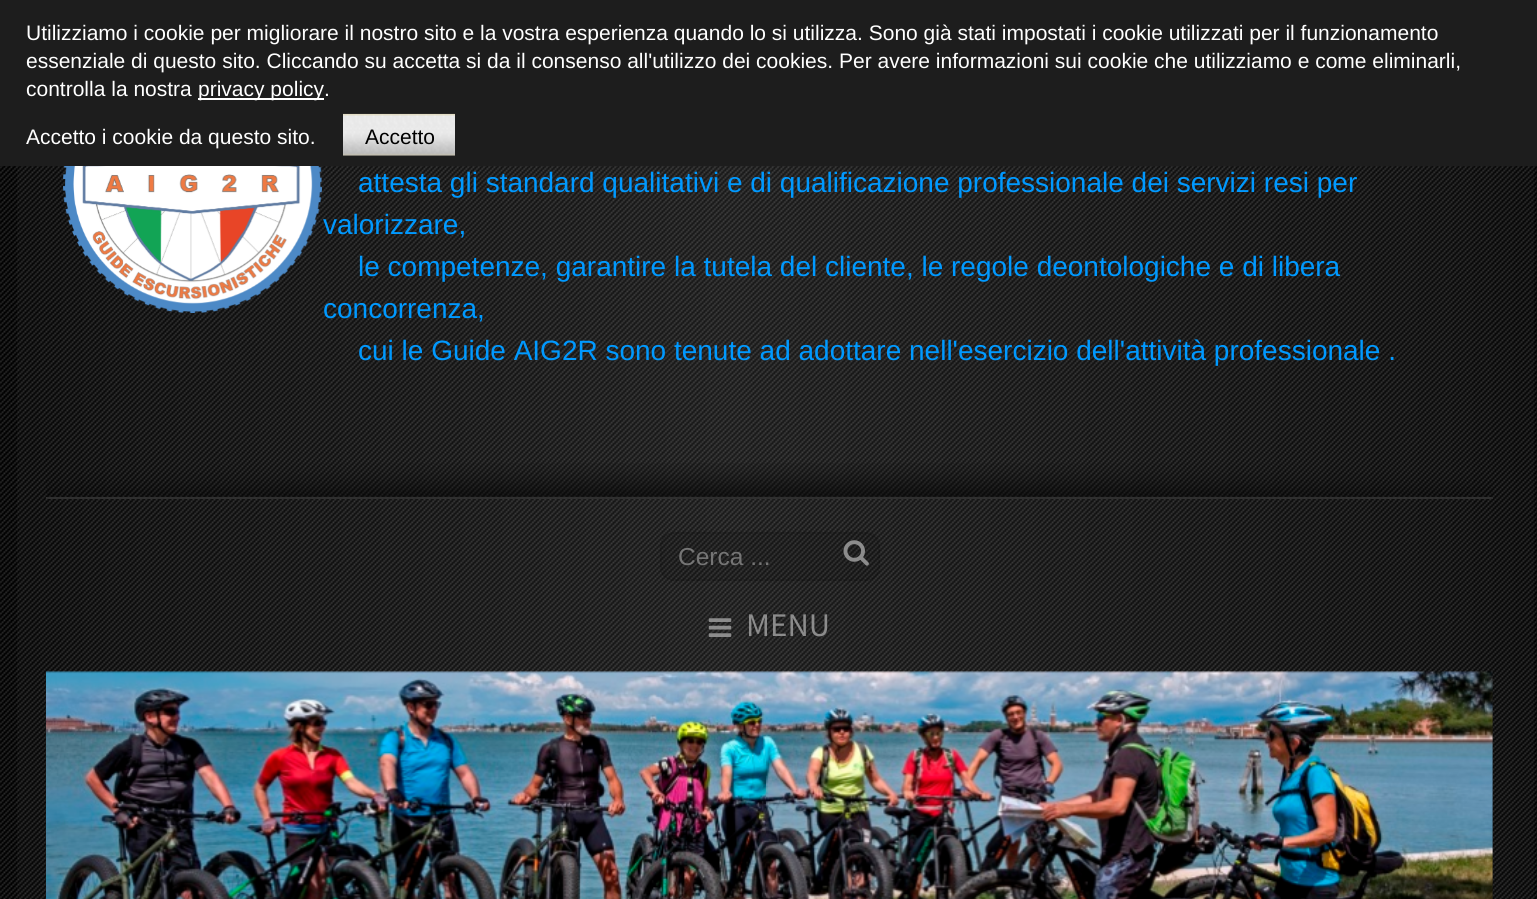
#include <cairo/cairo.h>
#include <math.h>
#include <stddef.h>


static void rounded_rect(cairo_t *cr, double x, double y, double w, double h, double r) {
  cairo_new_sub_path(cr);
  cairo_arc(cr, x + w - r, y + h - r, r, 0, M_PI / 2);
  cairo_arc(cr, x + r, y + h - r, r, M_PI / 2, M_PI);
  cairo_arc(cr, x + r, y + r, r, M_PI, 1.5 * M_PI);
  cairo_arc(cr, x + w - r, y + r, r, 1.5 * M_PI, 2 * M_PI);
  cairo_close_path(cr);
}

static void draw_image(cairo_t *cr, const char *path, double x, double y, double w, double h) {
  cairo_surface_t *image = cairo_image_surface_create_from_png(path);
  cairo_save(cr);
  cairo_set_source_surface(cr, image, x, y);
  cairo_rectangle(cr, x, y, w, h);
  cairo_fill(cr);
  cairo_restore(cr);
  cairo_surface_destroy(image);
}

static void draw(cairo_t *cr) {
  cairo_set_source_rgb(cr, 0, 0, 0);
  cairo_paint(cr);
  cairo_set_source_rgb(cr, 29 / 255.0, 29 / 255.0, 29 / 255.0);
  cairo_rectangle(cr, 0, 0, 1537, 166);
  cairo_fill(cr);
  cairo_set_source_rgb(cr, 1, 1, 1);
  cairo_rectangle(cr, 198, 98, 126, 2);
  cairo_fill(cr);
  draw_image(cr, "images/1.png", 343, 113, 112, 43);
  draw_image(cr, "images/2.png", 0, 166, 1537, 733);
  draw_image(cr, "images/3.png", 17, 166, 1517, 733);
  draw_image(cr, "images/4.png", 46, 463, 1447, 34);
  cairo_set_source_rgb(cr, 47 / 255.0, 47 / 255.0, 47 / 255.0);
  cairo_rectangle(cr, 46, 497, 1447, 2);
  cairo_fill(cr);
  draw_image(cr, "images/5.png", 63, 166, 259, 147);
  cairo_set_source_rgba(cr, 0, 0, 0, 0.1);
  rounded_rect(cr, 660, 532, 220, 49, 14);
  cairo_fill(cr);
  rounded_rect(cr, 661, 533, 218, 47, 13);
  cairo_stroke(cr);
  draw_image(cr, "images/6.png", 843, 540, 26, 26);
  draw_image(cr, "images/7.png", 708, 618, 24, 19);
  draw_image(cr, "images/8.png", 46, 671, 1447, 228);
  cairo_select_font_face(cr, "Liberation Sans", CAIRO_FONT_SLANT_NORMAL, CAIRO_FONT_WEIGHT_NORMAL);
  cairo_set_font_size(cr, 21);
  cairo_set_source_rgb(cr, 1, 1, 1);
  cairo_move_to(cr, 26, 40);
  cairo_show_text(cr, "Utilizziamo i cookie per migliorare il nostro sito e la vostra esperienza quando lo si utilizza. Sono già stati impostati i cookie utilizzati per il funzionamento");
  cairo_move_to(cr, 26, 68);
  cairo_show_text(cr, "essenziale di questo sito. Cliccando su accetta si da il consenso all'utilizzo dei cookies. Per avere informazioni sui cookie che utilizziamo e come eliminarli,");
  cairo_move_to(cr, 26, 96);
  cairo_show_text(cr, "controlla la nostra");
  cairo_move_to(cr, 198, 96);
  cairo_show_text(cr, "privacy policy.");
  cairo_move_to(cr, 26, 144);
  cairo_show_text(cr, "Accetto i cookie da questo sito.");
  cairo_set_source_rgb(cr, 0, 0, 0);
  cairo_move_to(cr, 365, 144);
  cairo_show_text(cr, "Accetto");
  cairo_set_font_size(cr, 28);
  cairo_set_source_rgb(cr, 0, 153 / 255.0, 1);
  cairo_move_to(cr, 358, 192);
  cairo_show_text(cr, "attesta gli standard qualitativi e di qualificazione professionale dei servizi resi per");
  cairo_move_to(cr, 323, 234);
  cairo_show_text(cr, "valorizzare,");
  cairo_move_to(cr, 358, 276);
  cairo_show_text(cr, "le competenze, garantire la tutela del cliente, le regole deontologiche e di libera");
  cairo_move_to(cr, 323, 318);
  cairo_show_text(cr, "concorrenza,");
  cairo_move_to(cr, 358, 360);
  cairo_show_text(cr, "cui le Guide AIG2R sono tenute ad adottare nell'esercizio dell'attività professionale .");
  cairo_set_font_size(cr, 24.5);
  cairo_set_source_rgb(cr, 117 / 255.0, 117 / 255.0, 117 / 255.0);
  cairo_move_to(cr, 678, 565);
  cairo_show_text(cr, "Cerca ...");
  cairo_select_font_face(cr, "Source Sans Pro", CAIRO_FONT_SLANT_NORMAL, CAIRO_FONT_WEIGHT_NORMAL);
  cairo_set_font_size(cr, 33);
  cairo_set_source_rgb(cr, 140 / 255.0, 140 / 255.0, 140 / 255.0);
  cairo_move_to(cr, 746, 636);
  cairo_show_text(cr, "MENU");
}

int main(void) {
  cairo_surface_t *surface = cairo_image_surface_create(CAIRO_FORMAT_RGB24, 1537, 899);
  cairo_t *cr = cairo_create(surface);
  cairo_font_options_t *options = cairo_font_options_create();
  cairo_font_options_set_hint_metrics(options, CAIRO_HINT_METRICS_OFF);
  cairo_font_options_set_hint_style(options, CAIRO_HINT_STYLE_NONE);
  cairo_set_font_options(cr, options);
  cairo_set_miter_limit(cr, 4);
  draw(cr);
  cairo_surface_write_to_png(surface, "out.png");
  cairo_font_options_destroy(options);
  cairo_destroy(cr);
  cairo_surface_destroy(surface);
  return 0;
}
